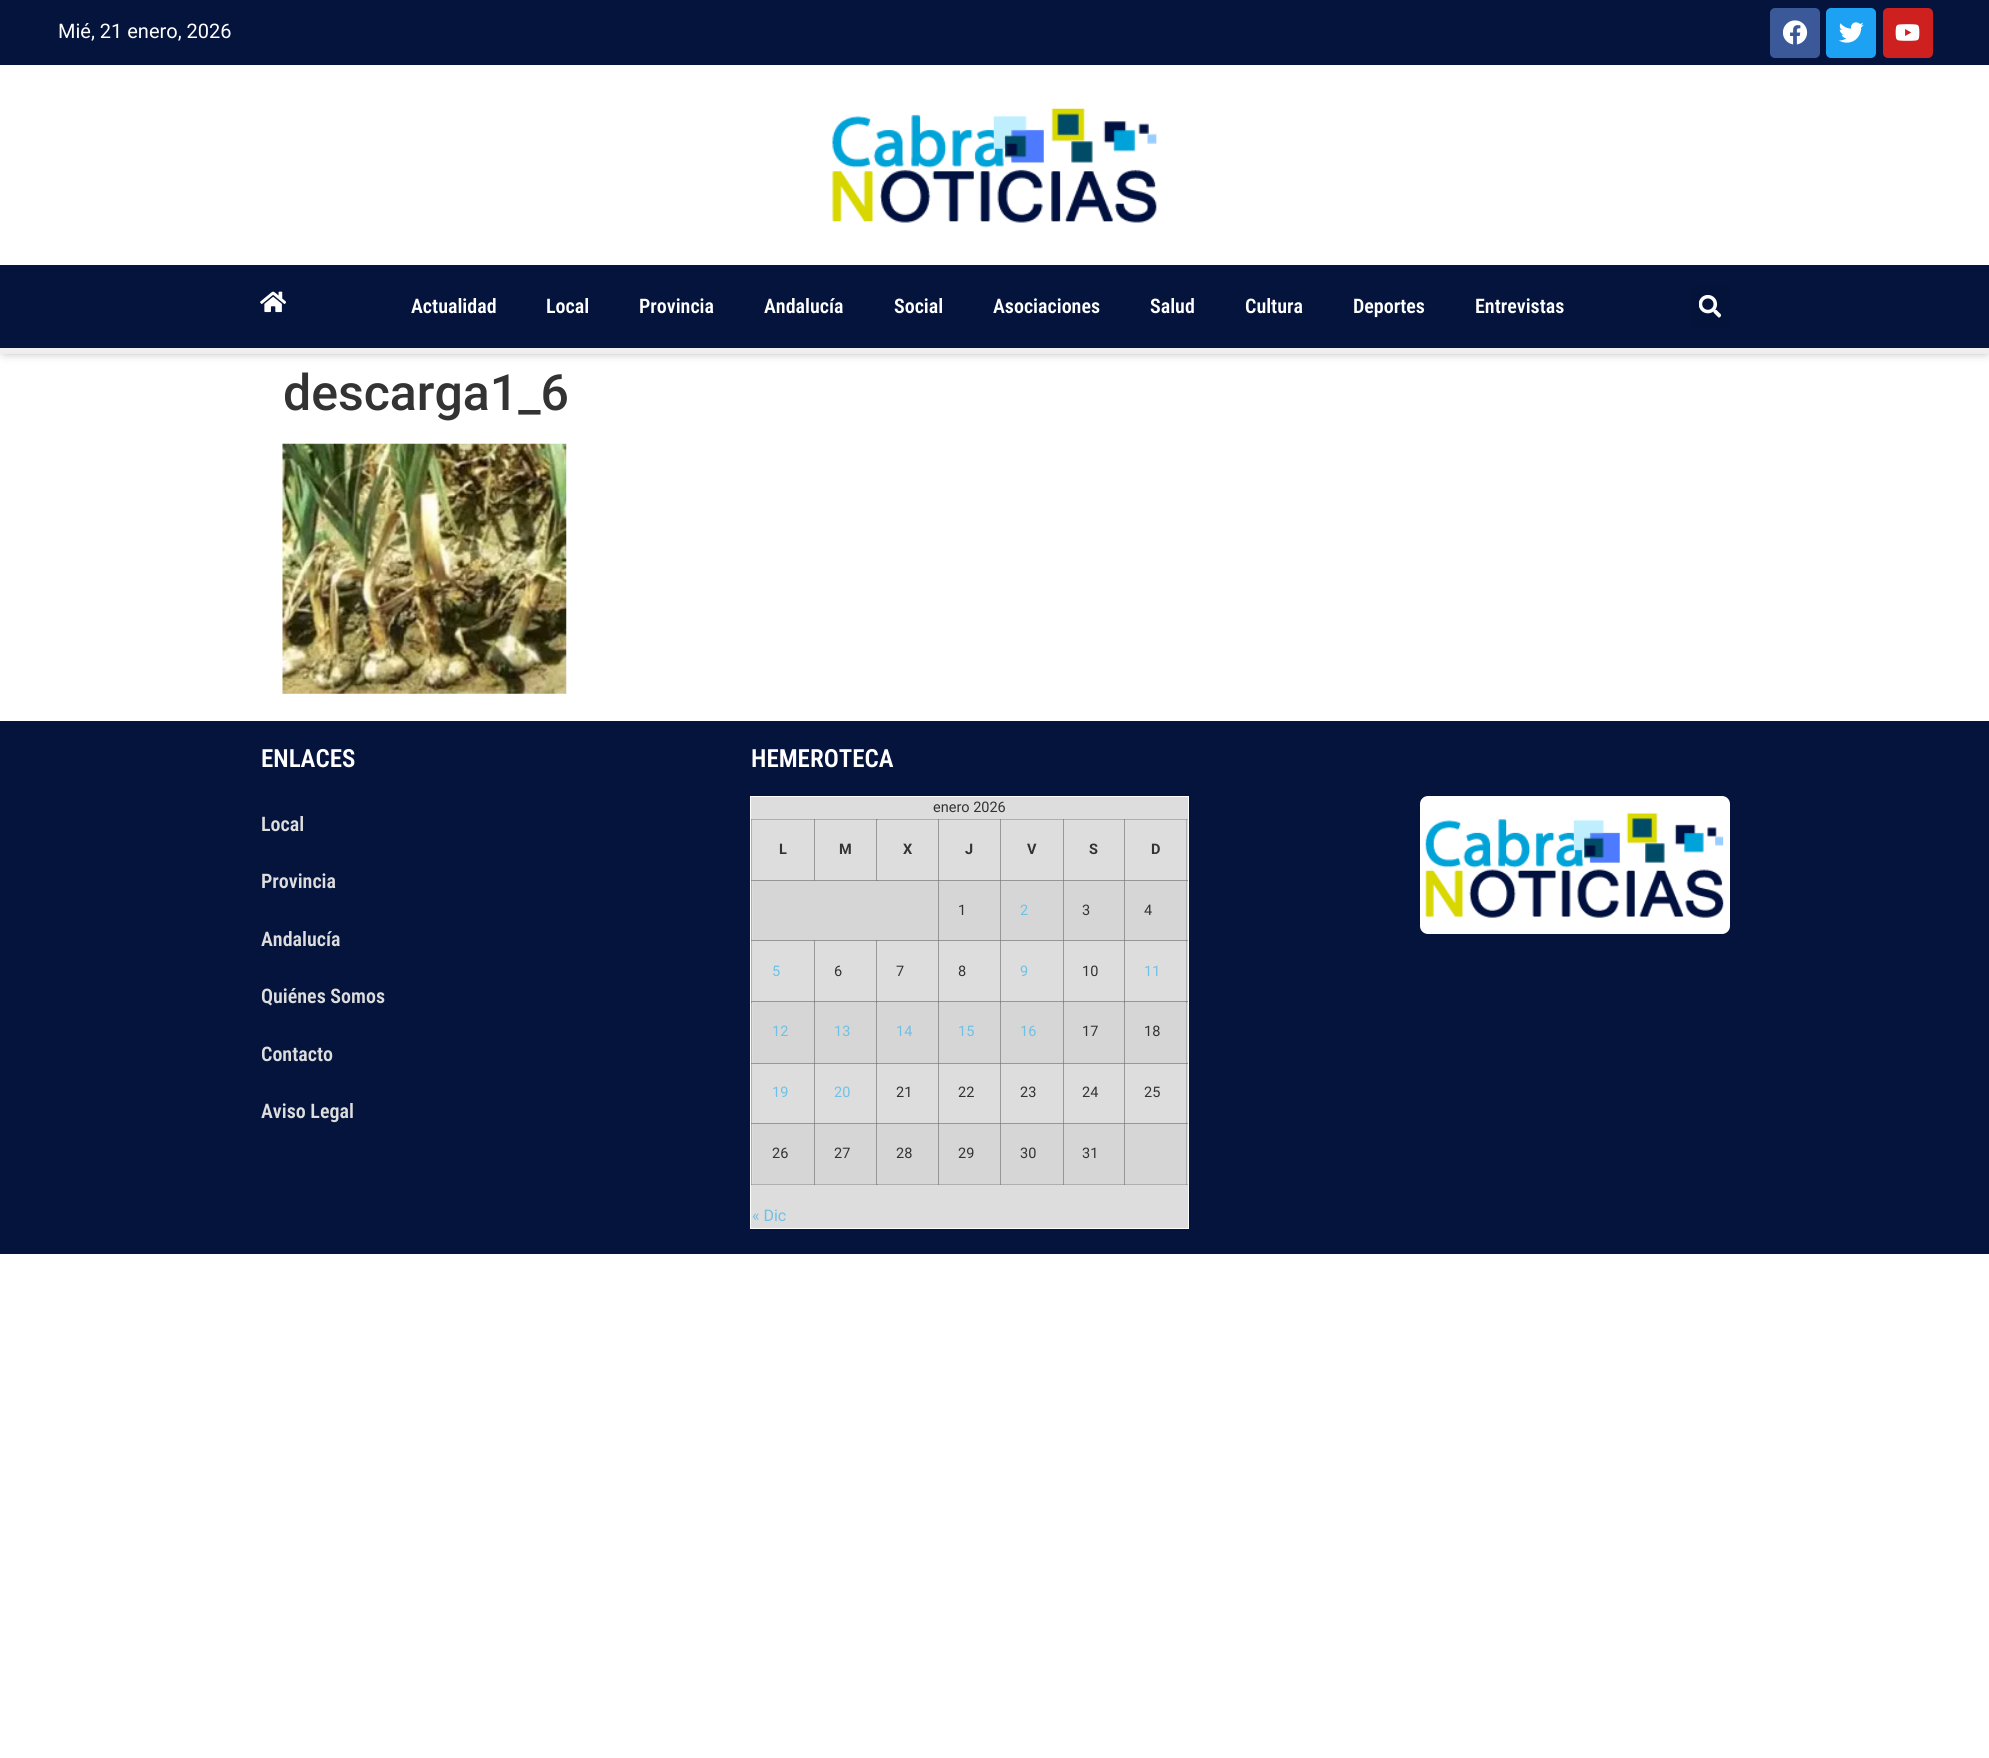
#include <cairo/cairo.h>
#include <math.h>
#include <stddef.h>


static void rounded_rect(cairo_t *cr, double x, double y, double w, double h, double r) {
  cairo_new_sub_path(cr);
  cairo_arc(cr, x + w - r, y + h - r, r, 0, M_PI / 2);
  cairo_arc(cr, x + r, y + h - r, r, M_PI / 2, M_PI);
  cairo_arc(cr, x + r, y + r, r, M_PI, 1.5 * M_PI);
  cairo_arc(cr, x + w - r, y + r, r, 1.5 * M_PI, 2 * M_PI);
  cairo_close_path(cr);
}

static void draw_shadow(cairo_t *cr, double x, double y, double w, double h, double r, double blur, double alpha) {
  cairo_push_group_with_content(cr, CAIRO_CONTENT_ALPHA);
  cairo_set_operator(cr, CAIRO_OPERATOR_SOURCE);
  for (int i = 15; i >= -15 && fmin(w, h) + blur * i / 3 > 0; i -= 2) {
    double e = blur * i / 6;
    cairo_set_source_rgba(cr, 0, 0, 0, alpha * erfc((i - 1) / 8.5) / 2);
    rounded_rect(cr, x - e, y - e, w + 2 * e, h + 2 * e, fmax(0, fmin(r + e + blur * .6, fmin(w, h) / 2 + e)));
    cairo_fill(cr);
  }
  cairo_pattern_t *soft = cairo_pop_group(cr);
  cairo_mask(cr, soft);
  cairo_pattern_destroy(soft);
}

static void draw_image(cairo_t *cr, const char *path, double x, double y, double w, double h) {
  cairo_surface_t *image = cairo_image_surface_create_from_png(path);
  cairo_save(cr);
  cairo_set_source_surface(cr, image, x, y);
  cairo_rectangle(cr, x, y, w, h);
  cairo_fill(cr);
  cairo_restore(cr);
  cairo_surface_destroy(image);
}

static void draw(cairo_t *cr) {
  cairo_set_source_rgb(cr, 1, 1, 1);
  cairo_paint(cr);
  cairo_set_source_rgb(cr, 0, 0, 0);
  draw_shadow(cr, 4, 4, 1982, 346, 0, 6, 0.5);
  cairo_set_source_rgb(cr, 1, 1, 1);
  cairo_rectangle(cr, 0, 65, 1989, 200);
  cairo_fill(cr);
  cairo_set_source_rgb(cr, 4 / 255.0, 20 / 255.0, 60 / 255.0);
  cairo_rectangle(cr, 0, 0, 1989, 65);
  cairo_fill(cr);
  cairo_set_source_rgb(cr, 59 / 255.0, 89 / 255.0, 152 / 255.0);
  rounded_rect(cr, 1770, 8, 50, 50, 5);
  cairo_fill(cr);
  draw_image(cr, "images/1.png", 1783, 20, 25, 25);
  cairo_set_source_rgb(cr, 29 / 255.0, 161 / 255.0, 242 / 255.0);
  rounded_rect(cr, 1826, 8, 50, 50, 5);
  cairo_fill(cr);
  draw_image(cr, "images/2.png", 1839, 22, 25, 21);
  cairo_set_source_rgb(cr, 205 / 255.0, 32 / 255.0, 31 / 255.0);
  rounded_rect(cr, 1883, 8, 50, 50, 5);
  cairo_fill(cr);
  draw_image(cr, "images/3.png", 1895, 24, 25, 17);
  draw_image(cr, "images/4.png", 832, 108, 325, 115);
  cairo_set_source_rgb(cr, 4 / 255.0, 20 / 255.0, 60 / 255.0);
  cairo_rectangle(cr, 0, 265, 1989, 83);
  cairo_fill(cr);
  draw_image(cr, "images/5.png", 260, 291, 26, 22);
  cairo_set_source_rgb(cr, 4 / 255.0, 19 / 255.0, 57 / 255.0);
  rounded_rect(cr, 1689, 286, 41, 42, 4);
  cairo_fill(cr);
  draw_image(cr, "images/6.png", 1699, 295, 22, 23);
  cairo_set_source_rgb(cr, 238 / 255.0, 238 / 255.0, 238 / 255.0);
  cairo_rectangle(cr, 0, 348, 1989, 6);
  cairo_fill(cr);
  draw_image(cr, "images/7.png", 282, 443, 285, 251);
  cairo_set_source_rgb(cr, 4 / 255.0, 20 / 255.0, 60 / 255.0);
  cairo_rectangle(cr, 0, 721, 1989, 533);
  cairo_fill(cr);
  cairo_set_source_rgb(cr, 221 / 255.0, 221 / 255.0, 221 / 255.0);
  cairo_rectangle(cr, 751, 797, 437, 431);
  cairo_fill(cr);
  cairo_set_source_rgb(cr, 175 / 255.0, 175 / 255.0, 175 / 255.0);
  cairo_rectangle(cr, 751, 819, 1, 366);
  cairo_fill(cr);
  cairo_rectangle(cr, 751, 819, 64, 1);
  cairo_fill(cr);
  cairo_set_source_rgb(cr, 152 / 255.0, 152 / 255.0, 152 / 255.0);
  cairo_rectangle(cr, 751, 819, 1, 1);
  cairo_fill(cr);
  cairo_rectangle(cr, 814, 819, 1, 62);
  cairo_fill(cr);
  cairo_set_source_rgb(cr, 175 / 255.0, 175 / 255.0, 175 / 255.0);
  cairo_rectangle(cr, 814, 819, 64, 1);
  cairo_fill(cr);
  cairo_set_source_rgb(cr, 134 / 255.0, 134 / 255.0, 134 / 255.0);
  cairo_rectangle(cr, 814, 819, 1, 1);
  cairo_fill(cr);
  cairo_set_source_rgb(cr, 152 / 255.0, 152 / 255.0, 152 / 255.0);
  cairo_rectangle(cr, 876, 819, 1, 62);
  cairo_fill(cr);
  cairo_set_source_rgb(cr, 175 / 255.0, 175 / 255.0, 175 / 255.0);
  cairo_rectangle(cr, 876, 819, 63, 1);
  cairo_fill(cr);
  cairo_set_source_rgb(cr, 152 / 255.0, 152 / 255.0, 152 / 255.0);
  cairo_rectangle(cr, 876, 819, 2, 1);
  cairo_fill(cr);
  cairo_set_source_rgb(cr, 134 / 255.0, 134 / 255.0, 134 / 255.0);
  cairo_rectangle(cr, 876, 819, 1, 1);
  cairo_fill(cr);
  cairo_set_source_rgb(cr, 152 / 255.0, 152 / 255.0, 152 / 255.0);
  cairo_rectangle(cr, 938, 819, 1, 62);
  cairo_fill(cr);
  cairo_set_source_rgb(cr, 175 / 255.0, 175 / 255.0, 175 / 255.0);
  cairo_rectangle(cr, 938, 819, 63, 1);
  cairo_fill(cr);
  cairo_set_source_rgb(cr, 134 / 255.0, 134 / 255.0, 134 / 255.0);
  cairo_rectangle(cr, 938, 819, 1, 1);
  cairo_fill(cr);
  cairo_set_source_rgb(cr, 152 / 255.0, 152 / 255.0, 152 / 255.0);
  cairo_rectangle(cr, 1000, 819, 1, 62);
  cairo_fill(cr);
  cairo_set_source_rgb(cr, 175 / 255.0, 175 / 255.0, 175 / 255.0);
  cairo_rectangle(cr, 1000, 819, 64, 1);
  cairo_fill(cr);
  cairo_set_source_rgb(cr, 134 / 255.0, 134 / 255.0, 134 / 255.0);
  cairo_rectangle(cr, 1000, 819, 1, 1);
  cairo_fill(cr);
  cairo_set_source_rgb(cr, 152 / 255.0, 152 / 255.0, 152 / 255.0);
  cairo_rectangle(cr, 1063, 819, 1, 62);
  cairo_fill(cr);
  cairo_set_source_rgb(cr, 175 / 255.0, 175 / 255.0, 175 / 255.0);
  cairo_rectangle(cr, 1063, 819, 62, 1);
  cairo_fill(cr);
  cairo_set_source_rgb(cr, 134 / 255.0, 134 / 255.0, 134 / 255.0);
  cairo_rectangle(cr, 1063, 819, 1, 1);
  cairo_fill(cr);
  cairo_set_source_rgb(cr, 152 / 255.0, 152 / 255.0, 152 / 255.0);
  cairo_rectangle(cr, 1124, 819, 1, 62);
  cairo_fill(cr);
  cairo_set_source_rgb(cr, 175 / 255.0, 175 / 255.0, 175 / 255.0);
  cairo_rectangle(cr, 1186, 819, 1, 305);
  cairo_fill(cr);
  cairo_set_source_rgb(cr, 152 / 255.0, 152 / 255.0, 152 / 255.0);
  cairo_rectangle(cr, 751, 880, 2, 1);
  cairo_fill(cr);
  cairo_set_source_rgb(cr, 134 / 255.0, 134 / 255.0, 134 / 255.0);
  cairo_rectangle(cr, 751, 880, 1, 1);
  cairo_fill(cr);
  cairo_set_source_rgb(cr, 152 / 255.0, 152 / 255.0, 152 / 255.0);
  cairo_rectangle(cr, 1187, 880, 1, 1);
  cairo_fill(cr);
  cairo_set_source_rgb(cr, 134 / 255.0, 134 / 255.0, 134 / 255.0);
  cairo_rectangle(cr, 1186, 880, 1, 1);
  cairo_fill(cr);
  cairo_set_source_rgb(cr, 152 / 255.0, 152 / 255.0, 152 / 255.0);
  cairo_rectangle(cr, 751, 940, 2, 1);
  cairo_fill(cr);
  cairo_set_source_rgb(cr, 134 / 255.0, 134 / 255.0, 134 / 255.0);
  cairo_rectangle(cr, 751, 940, 1, 1);
  cairo_fill(cr);
  cairo_set_source_rgb(cr, 152 / 255.0, 152 / 255.0, 152 / 255.0);
  cairo_rectangle(cr, 814, 940, 1, 63);
  cairo_fill(cr);
  cairo_rectangle(cr, 876, 940, 1, 63);
  cairo_fill(cr);
  cairo_rectangle(cr, 938, 940, 1, 63);
  cairo_fill(cr);
  cairo_rectangle(cr, 1000, 940, 1, 63);
  cairo_fill(cr);
  cairo_rectangle(cr, 1063, 940, 1, 63);
  cairo_fill(cr);
  cairo_rectangle(cr, 1124, 940, 1, 63);
  cairo_fill(cr);
  cairo_rectangle(cr, 1187, 940, 1, 1);
  cairo_fill(cr);
  cairo_set_source_rgb(cr, 134 / 255.0, 134 / 255.0, 134 / 255.0);
  cairo_rectangle(cr, 1186, 940, 1, 1);
  cairo_fill(cr);
  cairo_set_source_rgb(cr, 152 / 255.0, 152 / 255.0, 152 / 255.0);
  cairo_rectangle(cr, 751, 1001, 1, 2);
  cairo_fill(cr);
  cairo_rectangle(cr, 751, 1001, 2, 1);
  cairo_fill(cr);
  cairo_set_source_rgb(cr, 134 / 255.0, 134 / 255.0, 134 / 255.0);
  cairo_rectangle(cr, 751, 1001, 1, 1);
  cairo_fill(cr);
  cairo_set_source_rgb(cr, 152 / 255.0, 152 / 255.0, 152 / 255.0);
  cairo_rectangle(cr, 1186, 1001, 1, 2);
  cairo_fill(cr);
  cairo_rectangle(cr, 1187, 1001, 1, 1);
  cairo_fill(cr);
  cairo_set_source_rgb(cr, 134 / 255.0, 134 / 255.0, 134 / 255.0);
  cairo_rectangle(cr, 1186, 1001, 1, 1);
  cairo_fill(cr);
  cairo_set_source_rgb(cr, 152 / 255.0, 152 / 255.0, 152 / 255.0);
  cairo_rectangle(cr, 751, 1063, 64, 1);
  cairo_fill(cr);
  cairo_set_source_rgb(cr, 134 / 255.0, 134 / 255.0, 134 / 255.0);
  cairo_rectangle(cr, 751, 1063, 1, 1);
  cairo_fill(cr);
  cairo_set_source_rgb(cr, 152 / 255.0, 152 / 255.0, 152 / 255.0);
  cairo_rectangle(cr, 814, 1063, 1, 61);
  cairo_fill(cr);
  cairo_rectangle(cr, 814, 1063, 64, 1);
  cairo_fill(cr);
  cairo_set_source_rgb(cr, 129 / 255.0, 129 / 255.0, 129 / 255.0);
  cairo_rectangle(cr, 814, 1063, 1, 1);
  cairo_fill(cr);
  cairo_set_source_rgb(cr, 152 / 255.0, 152 / 255.0, 152 / 255.0);
  cairo_rectangle(cr, 876, 1063, 1, 61);
  cairo_fill(cr);
  cairo_rectangle(cr, 876, 1063, 63, 1);
  cairo_fill(cr);
  cairo_set_source_rgb(cr, 134 / 255.0, 134 / 255.0, 134 / 255.0);
  cairo_rectangle(cr, 876, 1063, 2, 1);
  cairo_fill(cr);
  cairo_set_source_rgb(cr, 129 / 255.0, 129 / 255.0, 129 / 255.0);
  cairo_rectangle(cr, 876, 1063, 1, 1);
  cairo_fill(cr);
  cairo_set_source_rgb(cr, 152 / 255.0, 152 / 255.0, 152 / 255.0);
  cairo_rectangle(cr, 938, 1063, 1, 61);
  cairo_fill(cr);
  cairo_rectangle(cr, 938, 1063, 63, 1);
  cairo_fill(cr);
  cairo_set_source_rgb(cr, 129 / 255.0, 129 / 255.0, 129 / 255.0);
  cairo_rectangle(cr, 938, 1063, 1, 1);
  cairo_fill(cr);
  cairo_set_source_rgb(cr, 152 / 255.0, 152 / 255.0, 152 / 255.0);
  cairo_rectangle(cr, 1000, 1063, 1, 61);
  cairo_fill(cr);
  cairo_rectangle(cr, 1000, 1063, 64, 1);
  cairo_fill(cr);
  cairo_set_source_rgb(cr, 129 / 255.0, 129 / 255.0, 129 / 255.0);
  cairo_rectangle(cr, 1000, 1063, 1, 1);
  cairo_fill(cr);
  cairo_set_source_rgb(cr, 152 / 255.0, 152 / 255.0, 152 / 255.0);
  cairo_rectangle(cr, 1063, 1063, 1, 61);
  cairo_fill(cr);
  cairo_rectangle(cr, 1063, 1063, 62, 1);
  cairo_fill(cr);
  cairo_set_source_rgb(cr, 129 / 255.0, 129 / 255.0, 129 / 255.0);
  cairo_rectangle(cr, 1063, 1063, 1, 1);
  cairo_fill(cr);
  cairo_set_source_rgb(cr, 152 / 255.0, 152 / 255.0, 152 / 255.0);
  cairo_rectangle(cr, 1124, 1063, 1, 61);
  cairo_fill(cr);
  cairo_set_source_rgb(cr, 175 / 255.0, 175 / 255.0, 175 / 255.0);
  cairo_rectangle(cr, 751, 1184, 437, 1);
  cairo_fill(cr);
  cairo_set_source_rgb(cr, 152 / 255.0, 152 / 255.0, 152 / 255.0);
  cairo_rectangle(cr, 751, 1184, 1, 1);
  cairo_fill(cr);
  cairo_rectangle(cr, 751, 1123, 374, 1);
  cairo_fill(cr);
  cairo_set_source_rgb(cr, 134 / 255.0, 134 / 255.0, 134 / 255.0);
  cairo_rectangle(cr, 751, 1123, 1, 1);
  cairo_fill(cr);
  cairo_rectangle(cr, 814, 1184, 1, 1);
  cairo_fill(cr);
  cairo_set_source_rgb(cr, 129 / 255.0, 129 / 255.0, 129 / 255.0);
  cairo_rectangle(cr, 814, 1123, 1, 1);
  cairo_fill(cr);
  cairo_set_source_rgb(cr, 152 / 255.0, 152 / 255.0, 152 / 255.0);
  cairo_rectangle(cr, 876, 1184, 2, 1);
  cairo_fill(cr);
  cairo_set_source_rgb(cr, 134 / 255.0, 134 / 255.0, 134 / 255.0);
  cairo_rectangle(cr, 876, 1184, 1, 1);
  cairo_fill(cr);
  cairo_rectangle(cr, 876, 1123, 2, 1);
  cairo_fill(cr);
  cairo_set_source_rgb(cr, 129 / 255.0, 129 / 255.0, 129 / 255.0);
  cairo_rectangle(cr, 876, 1123, 1, 1);
  cairo_fill(cr);
  cairo_set_source_rgb(cr, 134 / 255.0, 134 / 255.0, 134 / 255.0);
  cairo_rectangle(cr, 938, 1184, 1, 1);
  cairo_fill(cr);
  cairo_set_source_rgb(cr, 129 / 255.0, 129 / 255.0, 129 / 255.0);
  cairo_rectangle(cr, 938, 1123, 1, 1);
  cairo_fill(cr);
  cairo_set_source_rgb(cr, 134 / 255.0, 134 / 255.0, 134 / 255.0);
  cairo_rectangle(cr, 1000, 1184, 1, 1);
  cairo_fill(cr);
  cairo_set_source_rgb(cr, 129 / 255.0, 129 / 255.0, 129 / 255.0);
  cairo_rectangle(cr, 1000, 1123, 1, 1);
  cairo_fill(cr);
  cairo_set_source_rgb(cr, 134 / 255.0, 134 / 255.0, 134 / 255.0);
  cairo_rectangle(cr, 1063, 1184, 1, 1);
  cairo_fill(cr);
  cairo_set_source_rgb(cr, 129 / 255.0, 129 / 255.0, 129 / 255.0);
  cairo_rectangle(cr, 1063, 1123, 1, 1);
  cairo_fill(cr);
  cairo_set_source_rgb(cr, 134 / 255.0, 134 / 255.0, 134 / 255.0);
  cairo_rectangle(cr, 1124, 1184, 1, 1);
  cairo_fill(cr);
  cairo_set_source_rgb(cr, 175 / 255.0, 175 / 255.0, 175 / 255.0);
  cairo_rectangle(cr, 1186, 1123, 1, 62);
  cairo_fill(cr);
  cairo_set_source_rgb(cr, 152 / 255.0, 152 / 255.0, 152 / 255.0);
  cairo_rectangle(cr, 1186, 1184, 1, 1);
  cairo_fill(cr);
  cairo_rectangle(cr, 750.5, 796.5, 438, 432);
  cairo_set_source_rgb(cr, 1, 1, 1);
  cairo_set_line_width(cr, 1);
  cairo_stroke(cr);
  cairo_set_source_rgb(cr, 175 / 255.0, 175 / 255.0, 175 / 255.0);
  cairo_rectangle(cr, 1124, 819, 64, 1);
  cairo_fill(cr);
  cairo_set_source_rgb(cr, 134 / 255.0, 134 / 255.0, 134 / 255.0);
  cairo_rectangle(cr, 1124, 819, 1, 1);
  cairo_fill(cr);
  cairo_set_source_rgb(cr, 152 / 255.0, 152 / 255.0, 152 / 255.0);
  cairo_rectangle(cr, 1186, 819, 1, 1);
  cairo_fill(cr);
  cairo_set_source_rgb(cr, 214 / 255.0, 214 / 255.0, 214 / 255.0);
  cairo_rectangle(cr, 753, 881, 185, 59);
  cairo_fill(cr);
  cairo_set_source_rgb(cr, 150 / 255.0, 150 / 255.0, 150 / 255.0);
  cairo_rectangle(cr, 753, 880, 247, 1);
  cairo_fill(cr);
  cairo_set_source_rgb(cr, 131 / 255.0, 131 / 255.0, 131 / 255.0);
  cairo_rectangle(cr, 814, 880, 1, 1);
  cairo_fill(cr);
  cairo_set_source_rgb(cr, 139 / 255.0, 139 / 255.0, 139 / 255.0);
  cairo_rectangle(cr, 876, 880, 2, 1);
  cairo_fill(cr);
  cairo_set_source_rgb(cr, 131 / 255.0, 131 / 255.0, 131 / 255.0);
  cairo_rectangle(cr, 876, 880, 1, 1);
  cairo_fill(cr);
  cairo_set_source_rgb(cr, 150 / 255.0, 150 / 255.0, 150 / 255.0);
  cairo_rectangle(cr, 938, 880, 1, 61);
  cairo_fill(cr);
  cairo_set_source_rgb(cr, 129 / 255.0, 129 / 255.0, 129 / 255.0);
  cairo_rectangle(cr, 938, 880, 1, 1);
  cairo_fill(cr);
  cairo_set_source_rgb(cr, 150 / 255.0, 150 / 255.0, 150 / 255.0);
  cairo_rectangle(cr, 753, 940, 247, 1);
  cairo_fill(cr);
  cairo_set_source_rgb(cr, 131 / 255.0, 131 / 255.0, 131 / 255.0);
  cairo_rectangle(cr, 814, 940, 1, 1);
  cairo_fill(cr);
  cairo_set_source_rgb(cr, 139 / 255.0, 139 / 255.0, 139 / 255.0);
  cairo_rectangle(cr, 876, 940, 2, 1);
  cairo_fill(cr);
  cairo_set_source_rgb(cr, 131 / 255.0, 131 / 255.0, 131 / 255.0);
  cairo_rectangle(cr, 876, 940, 1, 1);
  cairo_fill(cr);
  cairo_set_source_rgb(cr, 129 / 255.0, 129 / 255.0, 129 / 255.0);
  cairo_rectangle(cr, 938, 940, 1, 1);
  cairo_fill(cr);
  cairo_set_source_rgb(cr, 214 / 255.0, 214 / 255.0, 214 / 255.0);
  cairo_rectangle(cr, 939, 881, 61, 59);
  cairo_fill(cr);
  cairo_rectangle(cr, 1001, 881, 62, 59);
  cairo_fill(cr);
  cairo_set_source_rgb(cr, 150 / 255.0, 150 / 255.0, 150 / 255.0);
  cairo_rectangle(cr, 1000, 880, 1, 61);
  cairo_fill(cr);
  cairo_rectangle(cr, 1000, 880, 63, 1);
  cairo_fill(cr);
  cairo_set_source_rgb(cr, 129 / 255.0, 129 / 255.0, 129 / 255.0);
  cairo_rectangle(cr, 1000, 880, 1, 1);
  cairo_fill(cr);
  cairo_set_source_rgb(cr, 150 / 255.0, 150 / 255.0, 150 / 255.0);
  cairo_rectangle(cr, 1000, 940, 63, 1);
  cairo_fill(cr);
  cairo_set_source_rgb(cr, 129 / 255.0, 129 / 255.0, 129 / 255.0);
  cairo_rectangle(cr, 1000, 940, 1, 1);
  cairo_fill(cr);
  cairo_set_source_rgb(cr, 214 / 255.0, 214 / 255.0, 214 / 255.0);
  cairo_rectangle(cr, 1064, 881, 60, 59);
  cairo_fill(cr);
  cairo_set_source_rgb(cr, 150 / 255.0, 150 / 255.0, 150 / 255.0);
  cairo_rectangle(cr, 1063, 880, 1, 61);
  cairo_fill(cr);
  cairo_rectangle(cr, 1063, 880, 123, 1);
  cairo_fill(cr);
  cairo_set_source_rgb(cr, 129 / 255.0, 129 / 255.0, 129 / 255.0);
  cairo_rectangle(cr, 1063, 880, 1, 1);
  cairo_fill(cr);
  cairo_set_source_rgb(cr, 150 / 255.0, 150 / 255.0, 150 / 255.0);
  cairo_rectangle(cr, 1124, 880, 1, 61);
  cairo_fill(cr);
  cairo_set_source_rgb(cr, 129 / 255.0, 129 / 255.0, 129 / 255.0);
  cairo_rectangle(cr, 1124, 880, 1, 1);
  cairo_fill(cr);
  cairo_set_source_rgb(cr, 150 / 255.0, 150 / 255.0, 150 / 255.0);
  cairo_rectangle(cr, 1063, 940, 123, 1);
  cairo_fill(cr);
  cairo_set_source_rgb(cr, 129 / 255.0, 129 / 255.0, 129 / 255.0);
  cairo_rectangle(cr, 1063, 940, 1, 1);
  cairo_fill(cr);
  cairo_rectangle(cr, 1124, 940, 1, 1);
  cairo_fill(cr);
  cairo_set_source_rgb(cr, 214 / 255.0, 214 / 255.0, 214 / 255.0);
  cairo_rectangle(cr, 1125, 881, 61, 59);
  cairo_fill(cr);
  cairo_rectangle(cr, 753, 1002, 61, 61);
  cairo_fill(cr);
  cairo_set_source_rgb(cr, 150 / 255.0, 150 / 255.0, 150 / 255.0);
  cairo_rectangle(cr, 753, 1001, 123, 1);
  cairo_fill(cr);
  cairo_rectangle(cr, 814, 1001, 1, 62);
  cairo_fill(cr);
  cairo_set_source_rgb(cr, 134 / 255.0, 134 / 255.0, 134 / 255.0);
  cairo_rectangle(cr, 814, 1001, 1, 2);
  cairo_fill(cr);
  cairo_set_source_rgb(cr, 129 / 255.0, 129 / 255.0, 129 / 255.0);
  cairo_rectangle(cr, 814, 1001, 1, 1);
  cairo_fill(cr);
  cairo_set_source_rgb(cr, 214 / 255.0, 214 / 255.0, 214 / 255.0);
  cairo_rectangle(cr, 815, 1002, 61, 61);
  cairo_fill(cr);
  cairo_rectangle(cr, 877, 1002, 61, 61);
  cairo_fill(cr);
  cairo_set_source_rgb(cr, 150 / 255.0, 150 / 255.0, 150 / 255.0);
  cairo_rectangle(cr, 876, 1001, 1, 62);
  cairo_fill(cr);
  cairo_set_source_rgb(cr, 134 / 255.0, 134 / 255.0, 134 / 255.0);
  cairo_rectangle(cr, 876, 1001, 1, 2);
  cairo_fill(cr);
  cairo_set_source_rgb(cr, 150 / 255.0, 150 / 255.0, 150 / 255.0);
  cairo_rectangle(cr, 876, 1001, 124, 1);
  cairo_fill(cr);
  cairo_set_source_rgb(cr, 134 / 255.0, 134 / 255.0, 134 / 255.0);
  cairo_rectangle(cr, 876, 1001, 2, 1);
  cairo_fill(cr);
  cairo_set_source_rgb(cr, 129 / 255.0, 129 / 255.0, 129 / 255.0);
  cairo_rectangle(cr, 876, 1001, 1, 1);
  cairo_fill(cr);
  cairo_set_source_rgb(cr, 150 / 255.0, 150 / 255.0, 150 / 255.0);
  cairo_rectangle(cr, 938, 1001, 1, 62);
  cairo_fill(cr);
  cairo_set_source_rgb(cr, 134 / 255.0, 134 / 255.0, 134 / 255.0);
  cairo_rectangle(cr, 938, 1001, 1, 2);
  cairo_fill(cr);
  cairo_set_source_rgb(cr, 129 / 255.0, 129 / 255.0, 129 / 255.0);
  cairo_rectangle(cr, 938, 1001, 1, 1);
  cairo_fill(cr);
  cairo_set_source_rgb(cr, 214 / 255.0, 214 / 255.0, 214 / 255.0);
  cairo_rectangle(cr, 939, 1002, 61, 61);
  cairo_fill(cr);
  cairo_rectangle(cr, 1001, 1002, 62, 61);
  cairo_fill(cr);
  cairo_set_source_rgb(cr, 150 / 255.0, 150 / 255.0, 150 / 255.0);
  cairo_rectangle(cr, 1000, 1001, 1, 62);
  cairo_fill(cr);
  cairo_set_source_rgb(cr, 134 / 255.0, 134 / 255.0, 134 / 255.0);
  cairo_rectangle(cr, 1000, 1001, 1, 2);
  cairo_fill(cr);
  cairo_set_source_rgb(cr, 150 / 255.0, 150 / 255.0, 150 / 255.0);
  cairo_rectangle(cr, 1000, 1001, 63, 1);
  cairo_fill(cr);
  cairo_set_source_rgb(cr, 129 / 255.0, 129 / 255.0, 129 / 255.0);
  cairo_rectangle(cr, 1000, 1001, 1, 1);
  cairo_fill(cr);
  cairo_set_source_rgb(cr, 214 / 255.0, 214 / 255.0, 214 / 255.0);
  cairo_rectangle(cr, 1064, 1002, 60, 61);
  cairo_fill(cr);
  cairo_set_source_rgb(cr, 150 / 255.0, 150 / 255.0, 150 / 255.0);
  cairo_rectangle(cr, 1063, 1001, 1, 62);
  cairo_fill(cr);
  cairo_set_source_rgb(cr, 134 / 255.0, 134 / 255.0, 134 / 255.0);
  cairo_rectangle(cr, 1063, 1001, 1, 2);
  cairo_fill(cr);
  cairo_set_source_rgb(cr, 150 / 255.0, 150 / 255.0, 150 / 255.0);
  cairo_rectangle(cr, 1063, 1001, 123, 1);
  cairo_fill(cr);
  cairo_set_source_rgb(cr, 129 / 255.0, 129 / 255.0, 129 / 255.0);
  cairo_rectangle(cr, 1063, 1001, 1, 1);
  cairo_fill(cr);
  cairo_set_source_rgb(cr, 150 / 255.0, 150 / 255.0, 150 / 255.0);
  cairo_rectangle(cr, 1124, 1001, 1, 62);
  cairo_fill(cr);
  cairo_set_source_rgb(cr, 134 / 255.0, 134 / 255.0, 134 / 255.0);
  cairo_rectangle(cr, 1124, 1001, 1, 2);
  cairo_fill(cr);
  cairo_set_source_rgb(cr, 129 / 255.0, 129 / 255.0, 129 / 255.0);
  cairo_rectangle(cr, 1124, 1001, 1, 1);
  cairo_fill(cr);
  cairo_set_source_rgb(cr, 214 / 255.0, 214 / 255.0, 214 / 255.0);
  cairo_rectangle(cr, 1125, 1002, 61, 61);
  cairo_fill(cr);
  cairo_set_source_rgb(cr, 152 / 255.0, 152 / 255.0, 152 / 255.0);
  cairo_rectangle(cr, 1124, 1063, 64, 1);
  cairo_fill(cr);
  cairo_set_source_rgb(cr, 129 / 255.0, 129 / 255.0, 129 / 255.0);
  cairo_rectangle(cr, 1124, 1063, 1, 1);
  cairo_fill(cr);
  cairo_set_source_rgb(cr, 134 / 255.0, 134 / 255.0, 134 / 255.0);
  cairo_rectangle(cr, 1186, 1063, 1, 1);
  cairo_fill(cr);
  cairo_set_source_rgb(cr, 214 / 255.0, 214 / 255.0, 214 / 255.0);
  cairo_rectangle(cr, 753, 1124, 61, 60);
  cairo_fill(cr);
  cairo_set_source_rgb(cr, 150 / 255.0, 150 / 255.0, 150 / 255.0);
  cairo_rectangle(cr, 814, 1124, 1, 60);
  cairo_fill(cr);
  cairo_set_source_rgb(cr, 214 / 255.0, 214 / 255.0, 214 / 255.0);
  cairo_rectangle(cr, 815, 1124, 61, 60);
  cairo_fill(cr);
  cairo_rectangle(cr, 877, 1124, 61, 60);
  cairo_fill(cr);
  cairo_set_source_rgb(cr, 150 / 255.0, 150 / 255.0, 150 / 255.0);
  cairo_rectangle(cr, 876, 1124, 1, 60);
  cairo_fill(cr);
  cairo_rectangle(cr, 938, 1124, 1, 60);
  cairo_fill(cr);
  cairo_set_source_rgb(cr, 214 / 255.0, 214 / 255.0, 214 / 255.0);
  cairo_rectangle(cr, 939, 1124, 61, 60);
  cairo_fill(cr);
  cairo_rectangle(cr, 1001, 1124, 62, 60);
  cairo_fill(cr);
  cairo_set_source_rgb(cr, 150 / 255.0, 150 / 255.0, 150 / 255.0);
  cairo_rectangle(cr, 1000, 1124, 1, 60);
  cairo_fill(cr);
  cairo_set_source_rgb(cr, 214 / 255.0, 214 / 255.0, 214 / 255.0);
  cairo_rectangle(cr, 1064, 1124, 60, 60);
  cairo_fill(cr);
  cairo_set_source_rgb(cr, 150 / 255.0, 150 / 255.0, 150 / 255.0);
  cairo_rectangle(cr, 1063, 1124, 1, 60);
  cairo_fill(cr);
  cairo_rectangle(cr, 1124, 1124, 1, 60);
  cairo_fill(cr);
  cairo_set_source_rgb(cr, 214 / 255.0, 214 / 255.0, 214 / 255.0);
  cairo_rectangle(cr, 1125, 1124, 61, 60);
  cairo_fill(cr);
  cairo_set_source_rgb(cr, 152 / 255.0, 152 / 255.0, 152 / 255.0);
  cairo_rectangle(cr, 1124, 1123, 64, 1);
  cairo_fill(cr);
  cairo_set_source_rgb(cr, 129 / 255.0, 129 / 255.0, 129 / 255.0);
  cairo_rectangle(cr, 1124, 1123, 1, 1);
  cairo_fill(cr);
  cairo_set_source_rgb(cr, 134 / 255.0, 134 / 255.0, 134 / 255.0);
  cairo_rectangle(cr, 1186, 1123, 1, 1);
  cairo_fill(cr);
  cairo_set_source_rgb(cr, 1, 1, 1);
  rounded_rect(cr, 1420, 796, 310, 138, 8);
  cairo_fill(cr);
  draw_image(cr, "images/8.png", 1425, 813, 299, 105);
  cairo_select_font_face(cr, "Roboto", CAIRO_FONT_SLANT_NORMAL, CAIRO_FONT_WEIGHT_NORMAL);
  cairo_set_font_size(cr, 20);
  cairo_move_to(cr, 58, 38);
  cairo_show_text(cr, "Mié, 21 enero, 2026");
  cairo_select_font_face(cr, "Roboto Condensed SemiBold", CAIRO_FONT_SLANT_NORMAL, CAIRO_FONT_WEIGHT_NORMAL);
  cairo_move_to(cr, 411, 313);
  cairo_show_text(cr, "Actualidad");
  cairo_move_to(cr, 546, 313);
  cairo_show_text(cr, "Local");
  cairo_move_to(cr, 639, 313);
  cairo_show_text(cr, "Provincia");
  cairo_move_to(cr, 764, 313);
  cairo_show_text(cr, "Andalucía");
  cairo_move_to(cr, 894, 313);
  cairo_show_text(cr, "Social");
  cairo_move_to(cr, 993, 313);
  cairo_show_text(cr, "Asociaciones");
  cairo_move_to(cr, 1150, 313);
  cairo_show_text(cr, "Salud");
  cairo_move_to(cr, 1245, 313);
  cairo_show_text(cr, "Cultura");
  cairo_move_to(cr, 1353, 313);
  cairo_show_text(cr, "Deportes");
  cairo_move_to(cr, 1475, 313);
  cairo_show_text(cr, "Entrevistas");
  cairo_select_font_face(cr, "Roboto Medium", CAIRO_FONT_SLANT_NORMAL, CAIRO_FONT_WEIGHT_NORMAL);
  cairo_set_font_size(cr, 50);
  cairo_set_source_rgb(cr, 51 / 255.0, 51 / 255.0, 51 / 255.0);
  cairo_move_to(cr, 283, 410);
  cairo_show_text(cr, "descarga1_6");
  cairo_select_font_face(cr, "Roboto Condensed SemiBold", CAIRO_FONT_SLANT_NORMAL, CAIRO_FONT_WEIGHT_NORMAL);
  cairo_set_font_size(cr, 25);
  cairo_set_source_rgb(cr, 1, 1, 1);
  cairo_move_to(cr, 261, 767);
  cairo_show_text(cr, "ENLACES");
  cairo_set_font_size(cr, 20);
  cairo_set_source_rgb(cr, 221 / 255.0, 221 / 255.0, 221 / 255.0);
  cairo_move_to(cr, 261, 831);
  cairo_show_text(cr, "Local");
  cairo_move_to(cr, 261, 888);
  cairo_show_text(cr, "Provincia");
  cairo_move_to(cr, 261, 946);
  cairo_show_text(cr, "Andalucía");
  cairo_move_to(cr, 261, 1003);
  cairo_show_text(cr, "Quiénes Somos");
  cairo_move_to(cr, 261, 1061);
  cairo_show_text(cr, "Contacto");
  cairo_move_to(cr, 261, 1118);
  cairo_show_text(cr, "Aviso Legal");
  cairo_set_font_size(cr, 25);
  cairo_set_source_rgb(cr, 1, 1, 1);
  cairo_move_to(cr, 751, 767);
  cairo_show_text(cr, "HEMEROTECA");
  cairo_select_font_face(cr, "Roboto", CAIRO_FONT_SLANT_NORMAL, CAIRO_FONT_WEIGHT_NORMAL);
  cairo_set_font_size(cr, 14.5);
  cairo_set_source_rgb(cr, 51 / 255.0, 51 / 255.0, 51 / 255.0);
  cairo_move_to(cr, 933, 812);
  cairo_show_text(cr, "enero 2026");
  cairo_select_font_face(cr, "Roboto", CAIRO_FONT_SLANT_NORMAL, CAIRO_FONT_WEIGHT_BOLD);
  cairo_move_to(cr, 779, 854);
  cairo_show_text(cr, "L");
  cairo_move_to(cr, 839, 854);
  cairo_show_text(cr, "M");
  cairo_move_to(cr, 903, 854);
  cairo_show_text(cr, "X");
  cairo_move_to(cr, 965, 854);
  cairo_show_text(cr, "J");
  cairo_move_to(cr, 1027, 854);
  cairo_show_text(cr, "V");
  cairo_move_to(cr, 1089, 854);
  cairo_show_text(cr, "S");
  cairo_move_to(cr, 1151, 854);
  cairo_show_text(cr, "D");
  cairo_select_font_face(cr, "Roboto", CAIRO_FONT_SLANT_NORMAL, CAIRO_FONT_WEIGHT_NORMAL);
  cairo_move_to(cr, 958, 915);
  cairo_show_text(cr, "1");
  cairo_set_source_rgb(cr, 110 / 255.0, 193 / 255.0, 230 / 255.0);
  cairo_move_to(cr, 1020, 915);
  cairo_show_text(cr, "2");
  cairo_set_source_rgb(cr, 51 / 255.0, 51 / 255.0, 51 / 255.0);
  cairo_move_to(cr, 1082, 915);
  cairo_show_text(cr, "3");
  cairo_move_to(cr, 1144, 915);
  cairo_show_text(cr, "4");
  cairo_set_source_rgb(cr, 110 / 255.0, 193 / 255.0, 230 / 255.0);
  cairo_move_to(cr, 772, 976);
  cairo_show_text(cr, "5");
  cairo_set_source_rgb(cr, 51 / 255.0, 51 / 255.0, 51 / 255.0);
  cairo_move_to(cr, 834, 976);
  cairo_show_text(cr, "6");
  cairo_move_to(cr, 896, 976);
  cairo_show_text(cr, "7");
  cairo_move_to(cr, 958, 976);
  cairo_show_text(cr, "8");
  cairo_set_source_rgb(cr, 110 / 255.0, 193 / 255.0, 230 / 255.0);
  cairo_move_to(cr, 1020, 976);
  cairo_show_text(cr, "9");
  cairo_set_source_rgb(cr, 51 / 255.0, 51 / 255.0, 51 / 255.0);
  cairo_move_to(cr, 1082, 976);
  cairo_show_text(cr, "10");
  cairo_set_source_rgb(cr, 110 / 255.0, 193 / 255.0, 230 / 255.0);
  cairo_move_to(cr, 1144, 976);
  cairo_show_text(cr, "11");
  cairo_move_to(cr, 772, 1036);
  cairo_show_text(cr, "12");
  cairo_move_to(cr, 834, 1036);
  cairo_show_text(cr, "13");
  cairo_move_to(cr, 896, 1036);
  cairo_show_text(cr, "14");
  cairo_move_to(cr, 958, 1036);
  cairo_show_text(cr, "15");
  cairo_move_to(cr, 1020, 1036);
  cairo_show_text(cr, "16");
  cairo_set_source_rgb(cr, 51 / 255.0, 51 / 255.0, 51 / 255.0);
  cairo_move_to(cr, 1082, 1036);
  cairo_show_text(cr, "17");
  cairo_move_to(cr, 1144, 1036);
  cairo_show_text(cr, "18");
  cairo_set_source_rgb(cr, 110 / 255.0, 193 / 255.0, 230 / 255.0);
  cairo_move_to(cr, 772, 1097);
  cairo_show_text(cr, "19");
  cairo_move_to(cr, 834, 1097);
  cairo_show_text(cr, "20");
  cairo_set_source_rgb(cr, 51 / 255.0, 51 / 255.0, 51 / 255.0);
  cairo_move_to(cr, 896, 1097);
  cairo_show_text(cr, "21");
  cairo_move_to(cr, 958, 1097);
  cairo_show_text(cr, "22");
  cairo_move_to(cr, 1020, 1097);
  cairo_show_text(cr, "23");
  cairo_move_to(cr, 1082, 1097);
  cairo_show_text(cr, "24");
  cairo_move_to(cr, 1144, 1097);
  cairo_show_text(cr, "25");
  cairo_move_to(cr, 772, 1158);
  cairo_show_text(cr, "26");
  cairo_move_to(cr, 834, 1158);
  cairo_show_text(cr, "27");
  cairo_move_to(cr, 896, 1158);
  cairo_show_text(cr, "28");
  cairo_move_to(cr, 958, 1158);
  cairo_show_text(cr, "29");
  cairo_move_to(cr, 1020, 1158);
  cairo_show_text(cr, "30");
  cairo_move_to(cr, 1082, 1158);
  cairo_show_text(cr, "31");
  cairo_set_font_size(cr, 16);
  cairo_set_source_rgb(cr, 110 / 255.0, 193 / 255.0, 230 / 255.0);
  cairo_move_to(cr, 752, 1221);
  cairo_show_text(cr, "« Dic");
}

int main(void) {
  cairo_surface_t *surface = cairo_image_surface_create(CAIRO_FORMAT_RGB24, 1989, 1758);
  cairo_t *cr = cairo_create(surface);
  cairo_font_options_t *options = cairo_font_options_create();
  cairo_font_options_set_hint_metrics(options, CAIRO_HINT_METRICS_OFF);
  cairo_font_options_set_hint_style(options, CAIRO_HINT_STYLE_NONE);
  cairo_set_font_options(cr, options);
  cairo_set_miter_limit(cr, 4);
  draw(cr);
  cairo_surface_write_to_png(surface, "out.png");
  cairo_font_options_destroy(options);
  cairo_destroy(cr);
  cairo_surface_destroy(surface);
  return 0;
}
